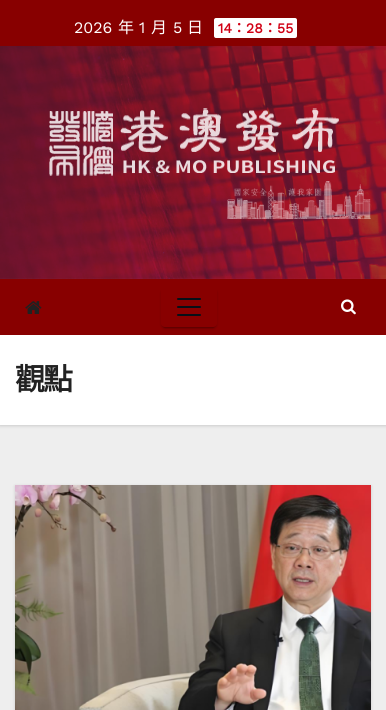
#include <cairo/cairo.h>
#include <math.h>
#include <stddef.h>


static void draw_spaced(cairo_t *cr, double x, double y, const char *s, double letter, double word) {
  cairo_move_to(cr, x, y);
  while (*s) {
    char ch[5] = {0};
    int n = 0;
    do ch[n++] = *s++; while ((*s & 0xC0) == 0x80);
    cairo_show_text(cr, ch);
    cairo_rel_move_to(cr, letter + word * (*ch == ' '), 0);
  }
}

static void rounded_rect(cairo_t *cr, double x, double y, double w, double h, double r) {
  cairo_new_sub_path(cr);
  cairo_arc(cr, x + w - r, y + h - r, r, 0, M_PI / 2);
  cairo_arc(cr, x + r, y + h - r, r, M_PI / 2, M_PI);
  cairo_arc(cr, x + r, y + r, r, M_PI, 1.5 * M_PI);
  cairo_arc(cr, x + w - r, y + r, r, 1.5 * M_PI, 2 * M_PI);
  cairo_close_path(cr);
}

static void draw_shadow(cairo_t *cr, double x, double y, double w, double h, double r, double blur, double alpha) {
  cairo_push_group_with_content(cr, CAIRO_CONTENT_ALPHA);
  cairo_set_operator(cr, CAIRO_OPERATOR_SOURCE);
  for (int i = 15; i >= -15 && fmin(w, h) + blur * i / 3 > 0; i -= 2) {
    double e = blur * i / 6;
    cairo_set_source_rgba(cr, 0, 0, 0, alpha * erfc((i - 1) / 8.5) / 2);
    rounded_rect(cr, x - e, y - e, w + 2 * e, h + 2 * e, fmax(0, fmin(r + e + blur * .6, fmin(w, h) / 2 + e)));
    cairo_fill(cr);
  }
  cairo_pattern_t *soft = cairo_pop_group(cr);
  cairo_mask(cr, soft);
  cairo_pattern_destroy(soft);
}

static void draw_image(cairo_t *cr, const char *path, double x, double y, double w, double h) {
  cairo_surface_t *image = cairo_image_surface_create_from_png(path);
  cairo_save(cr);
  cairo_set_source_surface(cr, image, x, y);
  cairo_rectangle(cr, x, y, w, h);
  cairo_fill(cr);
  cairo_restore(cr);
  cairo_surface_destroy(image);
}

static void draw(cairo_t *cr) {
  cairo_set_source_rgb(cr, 238 / 255.0, 238 / 255.0, 238 / 255.0);
  cairo_paint(cr);
  cairo_set_source_rgb(cr, 136 / 255.0, 0, 0);
  cairo_rectangle(cr, 0, 0, 386, 46);
  cairo_fill(cr);
  cairo_set_source_rgb(cr, 1, 1, 1);
  rounded_rect(cr, 214, 18, 83, 20, 2);
  cairo_fill(cr);
  draw_image(cr, "images/1.png", 0, 46, 386, 233);
  draw_image(cr, "images/2.png", 49, 108, 290, 68);
  draw_image(cr, "images/3.png", 227, 181, 144, 38);
  cairo_set_source_rgb(cr, 0, 0, 0);
  draw_shadow(cr, 0, 336, 386, 90, 0, 1.5, 0.15);
  cairo_set_source_rgb(cr, 136 / 255.0, 0, 0);
  cairo_rectangle(cr, 0, 279, 386, 56);
  cairo_fill(cr);
  draw_image(cr, "images/4.png", 25, 301, 17, 13);
  cairo_save(cr);
  cairo_set_fill_rule(cr, CAIRO_FILL_RULE_EVEN_ODD);
  cairo_new_path(cr);
  cairo_move_to(cr, 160, 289);
  cairo_line_to(cr, 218, 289);
  cairo_line_to(cr, 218, 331);
  cairo_line_to(cr, 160, 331);
  cairo_close_path(cr);
  cairo_move_to(cr, 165, 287);
  cairo_line_to(cr, 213, 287);
  cairo_curve_to(cr, 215, 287, 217, 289, 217, 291);
  cairo_line_to(cr, 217, 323);
  cairo_curve_to(cr, 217, 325, 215, 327, 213, 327);
  cairo_line_to(cr, 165, 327);
  cairo_curve_to(cr, 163, 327, 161, 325, 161, 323);
  cairo_line_to(cr, 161, 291);
  cairo_curve_to(cr, 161, 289, 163, 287, 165, 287);
  cairo_close_path(cr);
  cairo_clip(cr);
  cairo_set_source_rgb(cr, 0, 0, 0);
  draw_shadow(cr, 163, 292, 52, 36, 2, 0.5, 0.2);
  cairo_restore(cr);
  cairo_save(cr);
  cairo_set_fill_rule(cr, CAIRO_FILL_RULE_EVEN_ODD);
  cairo_new_path(cr);
  cairo_move_to(cr, 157, 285);
  cairo_line_to(cr, 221, 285);
  cairo_line_to(cr, 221, 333);
  cairo_line_to(cr, 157, 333);
  cairo_close_path(cr);
  cairo_move_to(cr, 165, 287);
  cairo_line_to(cr, 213, 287);
  cairo_curve_to(cr, 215, 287, 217, 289, 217, 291);
  cairo_line_to(cr, 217, 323);
  cairo_curve_to(cr, 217, 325, 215, 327, 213, 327);
  cairo_line_to(cr, 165, 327);
  cairo_curve_to(cr, 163, 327, 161, 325, 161, 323);
  cairo_line_to(cr, 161, 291);
  cairo_curve_to(cr, 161, 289, 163, 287, 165, 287);
  cairo_close_path(cr);
  cairo_clip(cr);
  cairo_set_source_rgb(cr, 0, 0, 0);
  draw_shadow(cr, 161, 289, 56, 40, 4, 1, 0.14);
  cairo_restore(cr);
  draw_image(cr, "images/5.png", 177, 298, 24, 18);
  draw_image(cr, "images/6.png", 341, 299, 15, 16);
  cairo_set_source_rgb(cr, 1, 1, 1);
  cairo_rectangle(cr, 0, 335, 386, 90);
  cairo_fill(cr);
  cairo_set_source_rgb(cr, 0, 0, 0);
  draw_shadow(cr, 15, 486, 356, 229, 0, 1.5, 0.15);
  draw_image(cr, "images/7.png", 15, 485, 356, 225);
  cairo_select_font_face(cr, "Work Sans", CAIRO_FONT_SLANT_NORMAL, CAIRO_FONT_WEIGHT_NORMAL);
  cairo_set_font_size(cr, 16);
  cairo_set_source_rgb(cr, 1, 1, 1);
  cairo_move_to(cr, 74, 33);
  cairo_show_text(cr, "2026");
  cairo_select_font_face(cr, "Noto Sans CJK HK", CAIRO_FONT_SLANT_NORMAL, CAIRO_FONT_WEIGHT_NORMAL);
  cairo_move_to(cr, 118, 33);
  cairo_show_text(cr, "年");
  cairo_select_font_face(cr, "Work Sans", CAIRO_FONT_SLANT_NORMAL, CAIRO_FONT_WEIGHT_NORMAL);
  cairo_move_to(cr, 139, 33);
  cairo_show_text(cr, "1");
  cairo_select_font_face(cr, "Noto Sans CJK HK", CAIRO_FONT_SLANT_NORMAL, CAIRO_FONT_WEIGHT_NORMAL);
  cairo_move_to(cr, 151, 33);
  cairo_show_text(cr, "月");
  cairo_select_font_face(cr, "Work Sans", CAIRO_FONT_SLANT_NORMAL, CAIRO_FONT_WEIGHT_NORMAL);
  cairo_move_to(cr, 173, 33);
  cairo_show_text(cr, "5");
  cairo_select_font_face(cr, "Noto Sans CJK HK", CAIRO_FONT_SLANT_NORMAL, CAIRO_FONT_WEIGHT_NORMAL);
  cairo_move_to(cr, 187, 33);
  cairo_show_text(cr, "日");
  cairo_select_font_face(cr, "Work Sans", CAIRO_FONT_SLANT_NORMAL, CAIRO_FONT_WEIGHT_BOLD);
  cairo_set_font_size(cr, 14);
  cairo_set_source_rgb(cr, 209 / 255.0, 0, 20 / 255.0);
  cairo_move_to(cr, 218, 33);
  cairo_show_text(cr, "14");
  cairo_select_font_face(cr, "Noto Sans CJK HK", CAIRO_FONT_SLANT_NORMAL, CAIRO_FONT_WEIGHT_BOLD);
  cairo_move_to(cr, 232, 33);
  cairo_show_text(cr, "：");
  cairo_select_font_face(cr, "Work Sans", CAIRO_FONT_SLANT_NORMAL, CAIRO_FONT_WEIGHT_BOLD);
  cairo_move_to(cr, 246, 33);
  cairo_show_text(cr, "28");
  cairo_select_font_face(cr, "Noto Sans CJK HK", CAIRO_FONT_SLANT_NORMAL, CAIRO_FONT_WEIGHT_BOLD);
  cairo_move_to(cr, 263, 33);
  cairo_show_text(cr, "：");
  cairo_select_font_face(cr, "Work Sans", CAIRO_FONT_SLANT_NORMAL, CAIRO_FONT_WEIGHT_BOLD);
  cairo_move_to(cr, 277, 33);
  cairo_show_text(cr, "55");
  cairo_select_font_face(cr, "Noto Sans CJK HK", CAIRO_FONT_SLANT_NORMAL, CAIRO_FONT_WEIGHT_BOLD);
  cairo_set_font_size(cr, 30);
  cairo_set_source_rgb(cr, 34 / 255.0, 34 / 255.0, 34 / 255.0);
  draw_spaced(cr, 15, 390, "觀點", -2, 0);
}

int main(void) {
  cairo_surface_t *surface = cairo_image_surface_create(CAIRO_FORMAT_RGB24, 386, 710);
  cairo_t *cr = cairo_create(surface);
  cairo_font_options_t *options = cairo_font_options_create();
  cairo_font_options_set_hint_metrics(options, CAIRO_HINT_METRICS_OFF);
  cairo_font_options_set_hint_style(options, CAIRO_HINT_STYLE_NONE);
  cairo_set_font_options(cr, options);
  cairo_set_miter_limit(cr, 4);
  draw(cr);
  cairo_surface_write_to_png(surface, "out.png");
  cairo_font_options_destroy(options);
  cairo_destroy(cr);
  cairo_surface_destroy(surface);
  return 0;
}
